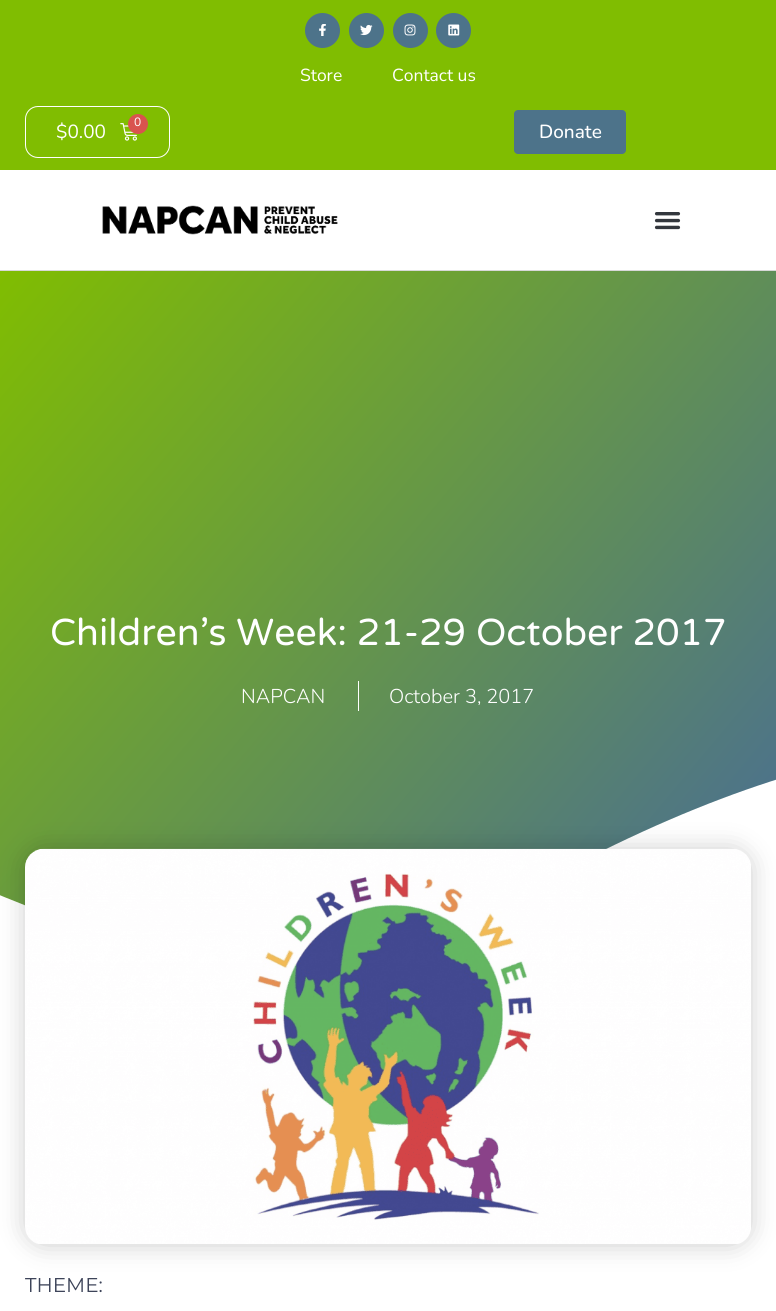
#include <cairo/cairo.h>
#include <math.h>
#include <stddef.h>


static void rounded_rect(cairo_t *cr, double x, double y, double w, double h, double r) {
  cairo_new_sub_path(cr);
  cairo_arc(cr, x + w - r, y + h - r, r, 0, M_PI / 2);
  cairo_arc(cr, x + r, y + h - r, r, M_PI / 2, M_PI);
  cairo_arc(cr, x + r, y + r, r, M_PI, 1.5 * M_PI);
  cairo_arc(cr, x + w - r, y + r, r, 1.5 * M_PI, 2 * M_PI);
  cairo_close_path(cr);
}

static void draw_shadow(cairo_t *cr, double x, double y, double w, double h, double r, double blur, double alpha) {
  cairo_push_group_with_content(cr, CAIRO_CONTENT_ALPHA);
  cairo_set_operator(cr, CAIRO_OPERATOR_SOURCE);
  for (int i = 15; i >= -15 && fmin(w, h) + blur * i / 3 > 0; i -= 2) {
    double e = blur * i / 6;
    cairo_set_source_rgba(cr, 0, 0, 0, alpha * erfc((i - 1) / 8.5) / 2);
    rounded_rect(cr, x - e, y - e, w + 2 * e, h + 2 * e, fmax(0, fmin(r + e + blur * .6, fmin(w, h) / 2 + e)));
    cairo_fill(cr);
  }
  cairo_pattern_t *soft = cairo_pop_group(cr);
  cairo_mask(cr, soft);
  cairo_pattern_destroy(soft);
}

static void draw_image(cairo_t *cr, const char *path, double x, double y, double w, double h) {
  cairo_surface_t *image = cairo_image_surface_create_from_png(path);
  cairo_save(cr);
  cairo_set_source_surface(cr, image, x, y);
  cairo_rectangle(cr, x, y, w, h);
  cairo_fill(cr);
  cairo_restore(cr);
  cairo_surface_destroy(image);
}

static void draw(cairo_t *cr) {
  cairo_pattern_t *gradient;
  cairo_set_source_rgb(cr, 1, 1, 1);
  cairo_paint(cr);
  cairo_set_source_rgb(cr, 128 / 255.0, 189 / 255.0, 1 / 255.0);
  cairo_rectangle(cr, 0, 0, 776, 170);
  cairo_fill(cr);
  cairo_set_source_rgb(cr, 77 / 255.0, 115 / 255.0, 138 / 255.0);
  cairo_arc(cr, 322.5, 30.5, 17.5, 0, 2 * M_PI);
  cairo_fill(cr);
  draw_image(cr, "images/1.png", 319, 24, 7, 12);
  cairo_arc(cr, 366.5, 30.5, 17.5, 0, 2 * M_PI);
  cairo_fill(cr);
  draw_image(cr, "images/2.png", 360, 24, 13, 12);
  cairo_arc(cr, 410.5, 30.5, 17.5, 0, 2 * M_PI);
  cairo_fill(cr);
  draw_image(cr, "images/3.png", 404, 24, 12, 12);
  cairo_arc(cr, 453.5, 30.5, 17.5, 0, 2 * M_PI);
  cairo_fill(cr);
  draw_image(cr, "images/4.png", 448, 24, 12, 12);
  rounded_rect(cr, 25.5, 106.5, 144, 51, 12.5);
  cairo_set_source_rgb(cr, 1, 1, 1);
  cairo_set_line_width(cr, 1);
  cairo_stroke(cr);
  draw_image(cr, "images/5.png", 120, 123, 17, 18);
  cairo_set_source_rgb(cr, 217 / 255.0, 83 / 255.0, 79 / 255.0);
  cairo_arc(cr, 138, 124, 10, 0, 2 * M_PI);
  cairo_fill(cr);
  cairo_set_source_rgb(cr, 77 / 255.0, 115 / 255.0, 138 / 255.0);
  rounded_rect(cr, 514, 110, 112, 44, 4);
  cairo_fill(cr);
  cairo_set_source_rgb(cr, 216 / 255.0, 216 / 255.0, 216 / 255.0);
  cairo_rectangle(cr, 0, 270, 776, 1);
  cairo_fill(cr);
  draw_image(cr, "images/6.png", 102, 205, 236, 30);
  draw_image(cr, "images/7.png", 654, 212, 27, 18);
  gradient = cairo_pattern_create_linear(-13, 286, 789, 959);
  cairo_pattern_add_color_stop_rgba(gradient, 0, 128 / 255.0, 189 / 255.0, 1 / 255.0, 1);
  cairo_pattern_add_color_stop_rgba(gradient, 0.89, 77 / 255.0, 115 / 255.0, 138 / 255.0, 1);
  cairo_set_source(cr, gradient);
  cairo_pattern_destroy(gradient);
  cairo_rectangle(cr, 0, 271, 776, 635);
  cairo_fill(cr);
  cairo_set_source_rgb(cr, 1, 1, 1);
  cairo_rectangle(cr, 358, 681, 1, 30);
  cairo_fill(cr);
  cairo_new_path(cr);
  cairo_move_to(cr, 231, 959);
  cairo_curve_to(cr, 277, 965, 335, 958, 383, 946);
  cairo_curve_to(cr, 431, 935, 527, 889, 586, 859);
  cairo_curve_to(cr, 740, 781, 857, 751, 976, 738);
  cairo_curve_to(cr, 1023, 733, 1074, 730, 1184, 744);
  cairo_curve_to(cr, 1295, 759, 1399, 807, 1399, 807);
  cairo_line_to(cr, 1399, 975);
  cairo_line_to(cr, -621, 975);
  cairo_line_to(cr, -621, 901);
  cairo_curve_to(cr, -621, 901, -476, 822, -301, 827);
  cairo_curve_to(cr, -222, 829, -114, 843, -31, 882);
  cairo_curve_to(cr, 12, 901, 75, 926, 130, 941);
  cairo_curve_to(cr, 185, 956, 210, 957, 231, 959);
  cairo_close_path(cr);
  cairo_fill(cr);
  cairo_set_source_rgb(cr, 0, 0, 0);
  draw_shadow(cr, 25, 849, 726, 396, 19, 12.5, 0.2);
  draw_image(cr, "images/8.png", 25, 848, 726, 396);
  cairo_select_font_face(cr, "Nunito", CAIRO_FONT_SLANT_NORMAL, CAIRO_FONT_WEIGHT_NORMAL);
  cairo_set_font_size(cr, 17.5);
  cairo_set_source_rgb(cr, 1, 1, 1);
  cairo_move_to(cr, 300, 81);
  cairo_show_text(cr, "Store");
  cairo_move_to(cr, 392, 81);
  cairo_show_text(cr, "Contact us");
  cairo_set_font_size(cr, 19);
  cairo_move_to(cr, 56, 138);
  cairo_show_text(cr, "$0.00");
  cairo_set_font_size(cr, 12);
  cairo_move_to(cr, 134, 126);
  cairo_show_text(cr, "0");
  cairo_select_font_face(cr, "Nunito Medium", CAIRO_FONT_SLANT_NORMAL, CAIRO_FONT_WEIGHT_NORMAL);
  cairo_set_font_size(cr, 19);
  cairo_move_to(cr, 539, 138);
  cairo_show_text(cr, "Donate");
  cairo_select_font_face(cr, "Varela Round", CAIRO_FONT_SLANT_NORMAL, CAIRO_FONT_WEIGHT_NORMAL);
  cairo_set_font_size(cr, 37.5);
  cairo_move_to(cr, 50, 645);
  cairo_show_text(cr, "Children’s Week: 21-29 October 2017");
  cairo_select_font_face(cr, "Nunito Light", CAIRO_FONT_SLANT_NORMAL, CAIRO_FONT_WEIGHT_NORMAL);
  cairo_set_font_size(cr, 20);
  cairo_move_to(cr, 241, 703);
  cairo_show_text(cr, "NAPCAN");
  cairo_move_to(cr, 389, 703);
  cairo_show_text(cr, "October 3, 2017");
  cairo_select_font_face(cr, "Montserrat", CAIRO_FONT_SLANT_NORMAL, CAIRO_FONT_WEIGHT_NORMAL);
  cairo_set_source_rgb(cr, 61 / 255.0, 68 / 255.0, 89 / 255.0);
  cairo_move_to(cr, 25, 1292);
  cairo_show_text(cr, "THEME:");
}

int main(void) {
  cairo_surface_t *surface = cairo_image_surface_create(CAIRO_FORMAT_RGB24, 776, 1311);
  cairo_t *cr = cairo_create(surface);
  cairo_font_options_t *options = cairo_font_options_create();
  cairo_font_options_set_hint_metrics(options, CAIRO_HINT_METRICS_OFF);
  cairo_font_options_set_hint_style(options, CAIRO_HINT_STYLE_NONE);
  cairo_set_font_options(cr, options);
  cairo_set_miter_limit(cr, 4);
  draw(cr);
  cairo_surface_write_to_png(surface, "out.png");
  cairo_font_options_destroy(options);
  cairo_destroy(cr);
  cairo_surface_destroy(surface);
  return 0;
}
